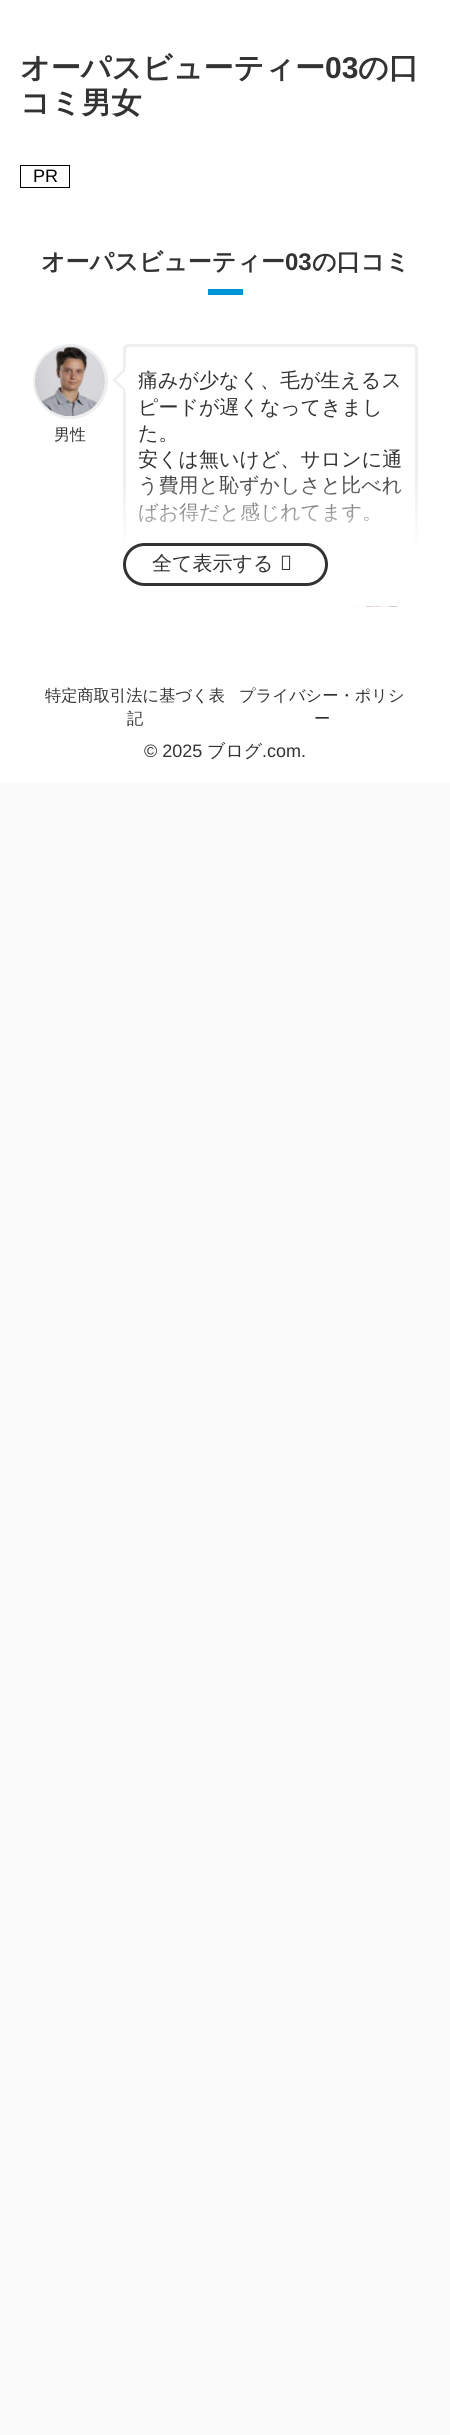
#include <cairo/cairo.h>
#include <math.h>
#include <stddef.h>


static void rounded_rect(cairo_t *cr, double x, double y, double w, double h, double r) {
  cairo_new_sub_path(cr);
  cairo_arc(cr, x + w - r, y + h - r, r, 0, M_PI / 2);
  cairo_arc(cr, x + r, y + h - r, r, M_PI / 2, M_PI);
  cairo_arc(cr, x + r, y + r, r, M_PI, 1.5 * M_PI);
  cairo_arc(cr, x + w - r, y + r, r, 1.5 * M_PI, 2 * M_PI);
  cairo_close_path(cr);
}

static void draw_image(cairo_t *cr, const char *path, double x, double y, double w, double h) {
  cairo_surface_t *image = cairo_image_surface_create_from_png(path);
  cairo_save(cr);
  cairo_set_source_surface(cr, image, x, y);
  cairo_rectangle(cr, x, y, w, h);
  cairo_fill(cr);
  cairo_restore(cr);
  cairo_surface_destroy(image);
}

static void draw(cairo_t *cr) {
  cairo_pattern_t *gradient;
  cairo_set_source_rgb(cr, 250 / 255.0, 250 / 255.0, 250 / 255.0);
  cairo_paint(cr);
  cairo_set_source_rgb(cr, 1, 1, 1);
  cairo_rectangle(cr, 0, 0, 450, 783);
  cairo_fill(cr);
  cairo_rectangle(cr, 20.5, 165.5, 49, 22);
  cairo_set_source_rgb(cr, 0, 0, 0);
  cairo_set_line_width(cr, 1);
  cairo_stroke(cr);
  cairo_set_source_rgb(cr, 0, 149 / 255.0, 217 / 255.0);
  cairo_rectangle(cr, 208, 289, 35, 6);
  cairo_fill(cr);
  cairo_arc(cr, 70.5, 381.5, 36, 0, 2 * M_PI);
  cairo_set_source_rgb(cr, 238 / 255.0, 238 / 255.0, 238 / 255.0);
  cairo_set_line_width(cr, 3);
  cairo_stroke(cr);
  draw_image(cr, "images/1.png", 35, 346, 70, 70);
  rounded_rect(cr, 124.5, 345.5, 292, 204, 3.5);
  cairo_stroke(cr);
  draw_image(cr, "images/3.png", 347, 606, 65, 1);
  cairo_select_font_face(cr, "WenQuanYi Zen Hei", CAIRO_FONT_SLANT_NORMAL, CAIRO_FONT_WEIGHT_BOLD);
  cairo_set_font_size(cr, 30);
  cairo_set_source_rgb(cr, 51 / 255.0, 51 / 255.0, 51 / 255.0);
  cairo_move_to(cr, 20, 78);
  cairo_show_text(cr, "オーパスビューティー");
  cairo_select_font_face(cr, "Liberation Sans", CAIRO_FONT_SLANT_NORMAL, CAIRO_FONT_WEIGHT_BOLD);
  cairo_move_to(cr, 325, 78);
  cairo_show_text(cr, "03");
  cairo_select_font_face(cr, "WenQuanYi Zen Hei", CAIRO_FONT_SLANT_NORMAL, CAIRO_FONT_WEIGHT_BOLD);
  cairo_move_to(cr, 358, 78);
  cairo_show_text(cr, "の口");
  cairo_move_to(cr, 20, 113);
  cairo_show_text(cr, "コミ男女");
  cairo_select_font_face(cr, "Liberation Sans", CAIRO_FONT_SLANT_NORMAL, CAIRO_FONT_WEIGHT_NORMAL);
  cairo_set_font_size(cr, 18);
  cairo_set_source_rgb(cr, 0, 0, 0);
  cairo_move_to(cr, 33, 182);
  cairo_show_text(cr, "PR");
  cairo_select_font_face(cr, "WenQuanYi Zen Hei", CAIRO_FONT_SLANT_NORMAL, CAIRO_FONT_WEIGHT_BOLD);
  cairo_set_font_size(cr, 24);
  cairo_set_source_rgb(cr, 51 / 255.0, 51 / 255.0, 51 / 255.0);
  cairo_move_to(cr, 41, 270);
  cairo_show_text(cr, "オーパスビューティー");
  cairo_select_font_face(cr, "Liberation Sans", CAIRO_FONT_SLANT_NORMAL, CAIRO_FONT_WEIGHT_BOLD);
  cairo_move_to(cr, 285, 270);
  cairo_show_text(cr, "03");
  cairo_select_font_face(cr, "WenQuanYi Zen Hei", CAIRO_FONT_SLANT_NORMAL, CAIRO_FONT_WEIGHT_BOLD);
  cairo_move_to(cr, 312, 270);
  cairo_show_text(cr, "の口コミ");
  cairo_select_font_face(cr, "WenQuanYi Zen Hei Medium", CAIRO_FONT_SLANT_NORMAL, CAIRO_FONT_WEIGHT_NORMAL);
  cairo_set_font_size(cr, 16);
  cairo_move_to(cr, 54, 440);
  cairo_show_text(cr, "男性");
  cairo_set_font_size(cr, 20);
  cairo_move_to(cr, 138, 387);
  cairo_show_text(cr, "痛みが少なく、毛が生えるス");
  cairo_set_source_rgb(cr, 1, 1, 1);
  cairo_new_path(cr);
  cairo_move_to(cr, 137.5, 380);
  cairo_line_to(cr, 125, 392);
  cairo_line_to(cr, 112.5, 380);
  cairo_line_to(cr, 125, 367.5);
  cairo_close_path(cr);
  cairo_fill(cr);
  cairo_set_source_rgb(cr, 238 / 255.0, 238 / 255.0, 238 / 255.0);
  cairo_new_path(cr);
  cairo_move_to(cr, 125, 392);
  cairo_line_to(cr, 112.5, 380);
  cairo_line_to(cr, 116, 380);
  cairo_line_to(cr, 125, 388.5);
  cairo_close_path(cr);
  cairo_move_to(cr, 112.5, 380);
  cairo_line_to(cr, 125, 367.5);
  cairo_line_to(cr, 125, 371);
  cairo_line_to(cr, 116, 380);
  cairo_close_path(cr);
  cairo_fill(cr);
  cairo_set_source_rgb(cr, 51 / 255.0, 51 / 255.0, 51 / 255.0);
  cairo_move_to(cr, 138, 414);
  cairo_show_text(cr, "ピードが遅くなってきまし");
  cairo_move_to(cr, 138, 440);
  cairo_show_text(cr, "た。");
  cairo_move_to(cr, 138, 466);
  cairo_show_text(cr, "安くは無いけど、サロンに通");
  cairo_move_to(cr, 138, 492);
  cairo_show_text(cr, "う費用と恥ずかしさと比べれ");
  cairo_move_to(cr, 138, 519);
  cairo_show_text(cr, "ばお得だと感じれてます。");
  gradient = cairo_pattern_create_linear(225, 473, 225, 606);
  cairo_pattern_add_color_stop_rgba(gradient, 0, 1, 1, 1, 0);
  cairo_pattern_add_color_stop_rgba(gradient, 0.6, 1, 1, 1, 1);
  cairo_set_source(cr, gradient);
  cairo_pattern_destroy(gradient);
  cairo_new_path(cr);
  cairo_move_to(cr, 20, 473);
  cairo_line_to(cr, 430, 473);
  cairo_line_to(cr, 430, 601);
  cairo_curve_to(cr, 430, 604, 428, 606, 425, 606);
  cairo_line_to(cr, 25, 606);
  cairo_curve_to(cr, 22, 606, 20, 604, 20, 601);
  cairo_close_path(cr);
  cairo_fill(cr);
  rounded_rect(cr, 124.5, 544.5, 202, 40, 20);
  cairo_set_source_rgb(cr, 51 / 255.0, 51 / 255.0, 51 / 255.0);
  cairo_stroke(cr);
  cairo_move_to(cr, 152, 570);
  cairo_show_text(cr, "全て表示する");
  draw_image(cr, "images/2.png", 281, 555, 10, 15);
  cairo_set_font_size(cr, 16.25);
  cairo_move_to(cr, 45, 701);
  cairo_show_text(cr, "特定商取引法に基づく表");
  cairo_move_to(cr, 127, 724);
  cairo_show_text(cr, "記");
  cairo_move_to(cr, 239, 701);
  cairo_show_text(cr, "プライバシー・ポリシ");
  cairo_move_to(cr, 314, 724);
  cairo_show_text(cr, "ー");
  cairo_select_font_face(cr, "Liberation Sans", CAIRO_FONT_SLANT_NORMAL, CAIRO_FONT_WEIGHT_NORMAL);
  cairo_set_font_size(cr, 18);
  cairo_move_to(cr, 144, 757);
  cairo_show_text(cr, "© 2025");
  cairo_select_font_face(cr, "WenQuanYi Zen Hei Medium", CAIRO_FONT_SLANT_NORMAL, CAIRO_FONT_WEIGHT_NORMAL);
  cairo_move_to(cr, 207, 757);
  cairo_show_text(cr, "ブログ");
  cairo_select_font_face(cr, "Liberation Sans", CAIRO_FONT_SLANT_NORMAL, CAIRO_FONT_WEIGHT_NORMAL);
  cairo_move_to(cr, 262, 757);
  cairo_show_text(cr, ".com.");
}

int main(void) {
  cairo_surface_t *surface = cairo_image_surface_create(CAIRO_FORMAT_RGB24, 450, 2435);
  cairo_t *cr = cairo_create(surface);
  cairo_font_options_t *options = cairo_font_options_create();
  cairo_font_options_set_hint_metrics(options, CAIRO_HINT_METRICS_OFF);
  cairo_font_options_set_hint_style(options, CAIRO_HINT_STYLE_NONE);
  cairo_set_font_options(cr, options);
  cairo_set_miter_limit(cr, 4);
  draw(cr);
  cairo_surface_write_to_png(surface, "out.png");
  cairo_font_options_destroy(options);
  cairo_destroy(cr);
  cairo_surface_destroy(surface);
  return 0;
}
